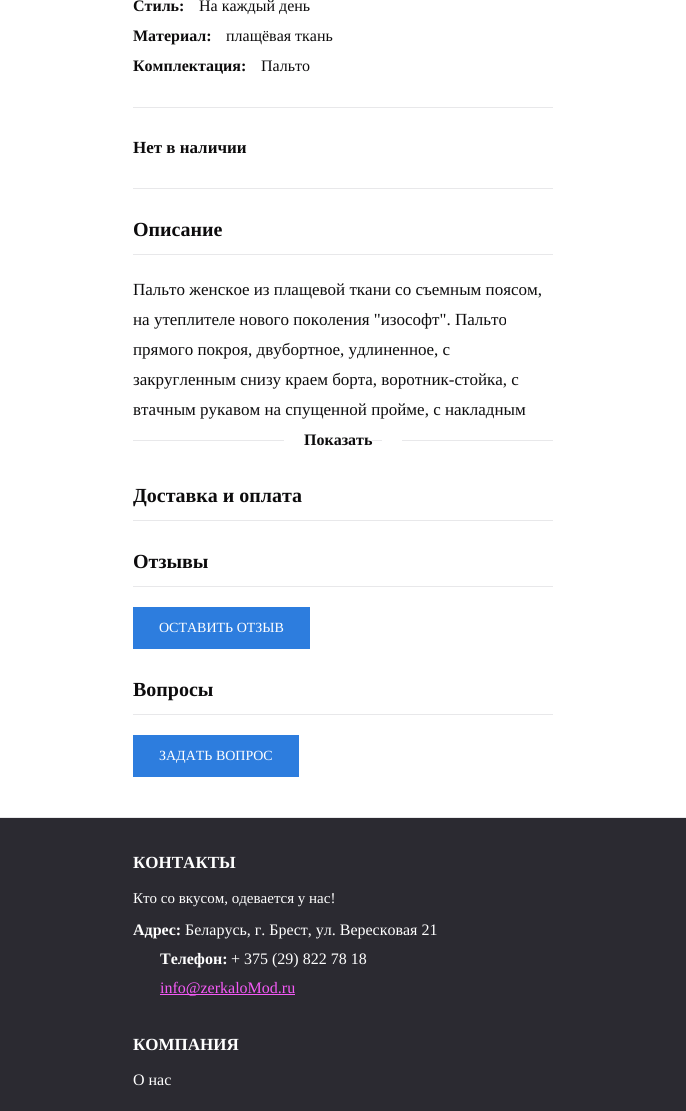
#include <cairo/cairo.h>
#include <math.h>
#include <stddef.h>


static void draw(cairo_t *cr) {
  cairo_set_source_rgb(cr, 1, 1, 1);
  cairo_paint(cr);
  cairo_set_source_rgb(cr, 232 / 255.0, 232 / 255.0, 234 / 255.0);
  cairo_rectangle(cr, 133, 107, 420, 1);
  cairo_fill(cr);
  cairo_rectangle(cr, 133, 188, 420, 1);
  cairo_fill(cr);
  cairo_rectangle(cr, 133, 254, 420, 1);
  cairo_fill(cr);
  cairo_rectangle(cr, 133, 440, 420, 1);
  cairo_fill(cr);
  cairo_set_source_rgb(cr, 1, 1, 1);
  cairo_rectangle(cr, 284, 440, 88, 1);
  cairo_fill(cr);
  cairo_rectangle(cr, 382, 440, 20, 1);
  cairo_fill(cr);
  cairo_set_source_rgb(cr, 232 / 255.0, 232 / 255.0, 234 / 255.0);
  cairo_rectangle(cr, 133, 520, 420, 1);
  cairo_fill(cr);
  cairo_rectangle(cr, 133, 586, 420, 1);
  cairo_fill(cr);
  cairo_set_source_rgb(cr, 45 / 255.0, 125 / 255.0, 222 / 255.0);
  cairo_rectangle(cr, 133, 607, 177, 42);
  cairo_fill(cr);
  cairo_set_source_rgb(cr, 232 / 255.0, 232 / 255.0, 234 / 255.0);
  cairo_rectangle(cr, 133, 714, 420, 1);
  cairo_fill(cr);
  cairo_set_source_rgb(cr, 45 / 255.0, 125 / 255.0, 222 / 255.0);
  cairo_rectangle(cr, 133, 735, 166, 42);
  cairo_fill(cr);
  cairo_set_source_rgb(cr, 232 / 255.0, 232 / 255.0, 234 / 255.0);
  cairo_rectangle(cr, 0, 817, 686, 1);
  cairo_fill(cr);
  cairo_set_source_rgb(cr, 43 / 255.0, 42 / 255.0, 49 / 255.0);
  cairo_rectangle(cr, 0, 818, 686, 293);
  cairo_fill(cr);
  cairo_set_source_rgb(cr, 245 / 255.0, 89 / 255.0, 247 / 255.0);
  cairo_rectangle(cr, 160, 994, 135, 1);
  cairo_fill(cr);
  cairo_select_font_face(cr, "Liberation Serif", CAIRO_FONT_SLANT_NORMAL, CAIRO_FONT_WEIGHT_BOLD);
  cairo_set_font_size(cr, 16);
  cairo_set_source_rgb(cr, 13 / 255.0, 12 / 255.0, 13 / 255.0);
  cairo_move_to(cr, 133, 11);
  cairo_show_text(cr, "Стиль:");
  cairo_select_font_face(cr, "Liberation Serif", CAIRO_FONT_SLANT_NORMAL, CAIRO_FONT_WEIGHT_NORMAL);
  cairo_move_to(cr, 199, 11);
  cairo_show_text(cr, "На каждый день");
  cairo_select_font_face(cr, "Liberation Serif", CAIRO_FONT_SLANT_NORMAL, CAIRO_FONT_WEIGHT_BOLD);
  cairo_move_to(cr, 133, 41);
  cairo_show_text(cr, "Материал:");
  cairo_select_font_face(cr, "Liberation Serif", CAIRO_FONT_SLANT_NORMAL, CAIRO_FONT_WEIGHT_NORMAL);
  cairo_move_to(cr, 226, 41);
  cairo_show_text(cr, "плащёвая ткань");
  cairo_select_font_face(cr, "Liberation Serif", CAIRO_FONT_SLANT_NORMAL, CAIRO_FONT_WEIGHT_BOLD);
  cairo_move_to(cr, 133, 71);
  cairo_show_text(cr, "Комплектация:");
  cairo_select_font_face(cr, "Liberation Serif", CAIRO_FONT_SLANT_NORMAL, CAIRO_FONT_WEIGHT_NORMAL);
  cairo_move_to(cr, 261, 71);
  cairo_show_text(cr, "Пальто");
  cairo_select_font_face(cr, "Liberation Serif", CAIRO_FONT_SLANT_NORMAL, CAIRO_FONT_WEIGHT_BOLD);
  cairo_set_font_size(cr, 17);
  cairo_move_to(cr, 133, 153);
  cairo_show_text(cr, "Нет в наличии");
  cairo_set_font_size(cr, 20);
  cairo_move_to(cr, 133, 236);
  cairo_show_text(cr, "Описание");
  cairo_select_font_face(cr, "Liberation Serif", CAIRO_FONT_SLANT_NORMAL, CAIRO_FONT_WEIGHT_NORMAL);
  cairo_set_font_size(cr, 17);
  cairo_move_to(cr, 133, 295);
  cairo_show_text(cr, "Пальто женское из плащевой ткани со съемным поясом,");
  cairo_move_to(cr, 133, 325);
  cairo_show_text(cr, "на утеплителе нового поколения \"изософт\". Пальто");
  cairo_move_to(cr, 133, 355);
  cairo_show_text(cr, "прямого покроя, двубортное, удлиненное, с");
  cairo_move_to(cr, 133, 385);
  cairo_show_text(cr, "закругленным снизу краем борта, воротник-стойка, с");
  cairo_move_to(cr, 133, 415);
  cairo_show_text(cr, "втачным рукавом на спущенной пройме, с накладным");
  cairo_select_font_face(cr, "Liberation Serif", CAIRO_FONT_SLANT_NORMAL, CAIRO_FONT_WEIGHT_BOLD);
  cairo_set_font_size(cr, 16);
  cairo_move_to(cr, 304, 445);
  cairo_show_text(cr, "Показать");
  cairo_set_font_size(cr, 20);
  cairo_move_to(cr, 133, 502);
  cairo_show_text(cr, "Доставка и оплата");
  cairo_move_to(cr, 133, 568);
  cairo_show_text(cr, "Отзывы");
  cairo_select_font_face(cr, "Liberation Serif", CAIRO_FONT_SLANT_NORMAL, CAIRO_FONT_WEIGHT_NORMAL);
  cairo_set_font_size(cr, 14);
  cairo_set_source_rgb(cr, 1, 1, 1);
  cairo_move_to(cr, 159, 632);
  cairo_show_text(cr, "ОСТАВИТЬ ОТЗЫВ");
  cairo_select_font_face(cr, "Liberation Serif", CAIRO_FONT_SLANT_NORMAL, CAIRO_FONT_WEIGHT_BOLD);
  cairo_set_font_size(cr, 20);
  cairo_set_source_rgb(cr, 13 / 255.0, 12 / 255.0, 13 / 255.0);
  cairo_move_to(cr, 133, 696);
  cairo_show_text(cr, "Вопросы");
  cairo_select_font_face(cr, "Liberation Serif", CAIRO_FONT_SLANT_NORMAL, CAIRO_FONT_WEIGHT_NORMAL);
  cairo_set_font_size(cr, 14);
  cairo_set_source_rgb(cr, 1, 1, 1);
  cairo_move_to(cr, 159, 760);
  cairo_show_text(cr, "ЗАДАТЬ ВОПРОС");
  cairo_select_font_face(cr, "Liberation Serif", CAIRO_FONT_SLANT_NORMAL, CAIRO_FONT_WEIGHT_BOLD);
  cairo_set_font_size(cr, 17);
  cairo_move_to(cr, 133, 868);
  cairo_show_text(cr, "КОНТАКТЫ");
  cairo_select_font_face(cr, "Liberation Serif", CAIRO_FONT_SLANT_NORMAL, CAIRO_FONT_WEIGHT_NORMAL);
  cairo_set_font_size(cr, 15);
  cairo_move_to(cr, 133, 903);
  cairo_show_text(cr, "Кто со вкусом, одевается у нас!");
  cairo_select_font_face(cr, "Liberation Serif", CAIRO_FONT_SLANT_NORMAL, CAIRO_FONT_WEIGHT_BOLD);
  cairo_set_font_size(cr, 16);
  cairo_move_to(cr, 133, 935);
  cairo_show_text(cr, "Адрес:");
  cairo_select_font_face(cr, "Liberation Serif", CAIRO_FONT_SLANT_NORMAL, CAIRO_FONT_WEIGHT_NORMAL);
  cairo_move_to(cr, 185, 935);
  cairo_show_text(cr, "Беларусь, г. Брест, ул. Вересковая 21");
  cairo_select_font_face(cr, "Liberation Serif", CAIRO_FONT_SLANT_NORMAL, CAIRO_FONT_WEIGHT_BOLD);
  cairo_move_to(cr, 160, 964);
  cairo_show_text(cr, "Телефон:");
  cairo_select_font_face(cr, "Liberation Serif", CAIRO_FONT_SLANT_NORMAL, CAIRO_FONT_WEIGHT_NORMAL);
  cairo_move_to(cr, 231, 964);
  cairo_show_text(cr, "+ 375 (29) 822 78 18");
  cairo_set_source_rgb(cr, 245 / 255.0, 89 / 255.0, 247 / 255.0);
  cairo_move_to(cr, 160, 993);
  cairo_show_text(cr, "info@zerkaloMod.ru");
  cairo_select_font_face(cr, "Liberation Serif", CAIRO_FONT_SLANT_NORMAL, CAIRO_FONT_WEIGHT_BOLD);
  cairo_set_font_size(cr, 17);
  cairo_set_source_rgb(cr, 1, 1, 1);
  cairo_move_to(cr, 133, 1050);
  cairo_show_text(cr, "КОМПАНИЯ");
  cairo_select_font_face(cr, "Liberation Serif", CAIRO_FONT_SLANT_NORMAL, CAIRO_FONT_WEIGHT_NORMAL);
  cairo_set_font_size(cr, 16);
  cairo_move_to(cr, 133, 1085);
  cairo_show_text(cr, "О нас");
}

int main(void) {
  cairo_surface_t *surface = cairo_image_surface_create(CAIRO_FORMAT_RGB24, 686, 1111);
  cairo_t *cr = cairo_create(surface);
  cairo_font_options_t *options = cairo_font_options_create();
  cairo_font_options_set_hint_metrics(options, CAIRO_HINT_METRICS_OFF);
  cairo_font_options_set_hint_style(options, CAIRO_HINT_STYLE_NONE);
  cairo_set_font_options(cr, options);
  cairo_set_miter_limit(cr, 4);
  draw(cr);
  cairo_surface_write_to_png(surface, "out.png");
  cairo_font_options_destroy(options);
  cairo_destroy(cr);
  cairo_surface_destroy(surface);
  return 0;
}
